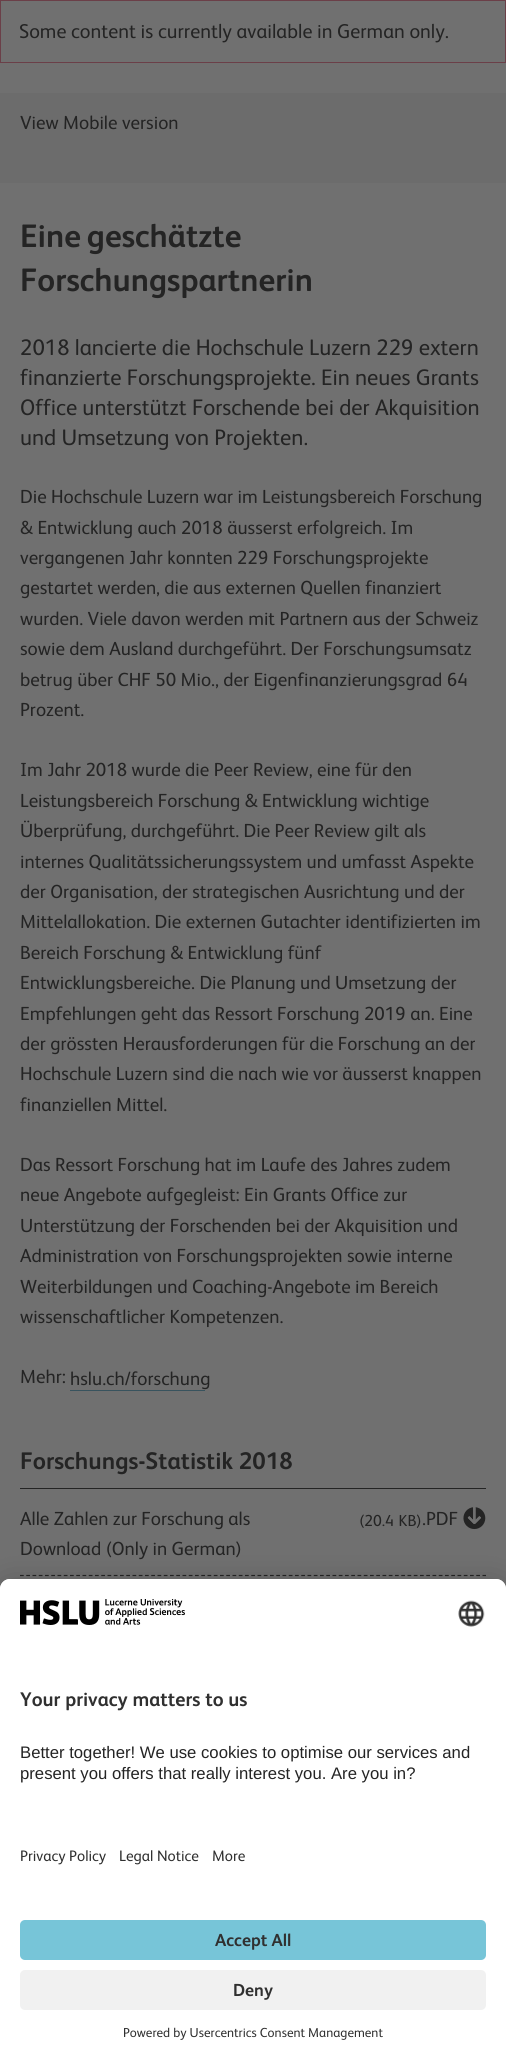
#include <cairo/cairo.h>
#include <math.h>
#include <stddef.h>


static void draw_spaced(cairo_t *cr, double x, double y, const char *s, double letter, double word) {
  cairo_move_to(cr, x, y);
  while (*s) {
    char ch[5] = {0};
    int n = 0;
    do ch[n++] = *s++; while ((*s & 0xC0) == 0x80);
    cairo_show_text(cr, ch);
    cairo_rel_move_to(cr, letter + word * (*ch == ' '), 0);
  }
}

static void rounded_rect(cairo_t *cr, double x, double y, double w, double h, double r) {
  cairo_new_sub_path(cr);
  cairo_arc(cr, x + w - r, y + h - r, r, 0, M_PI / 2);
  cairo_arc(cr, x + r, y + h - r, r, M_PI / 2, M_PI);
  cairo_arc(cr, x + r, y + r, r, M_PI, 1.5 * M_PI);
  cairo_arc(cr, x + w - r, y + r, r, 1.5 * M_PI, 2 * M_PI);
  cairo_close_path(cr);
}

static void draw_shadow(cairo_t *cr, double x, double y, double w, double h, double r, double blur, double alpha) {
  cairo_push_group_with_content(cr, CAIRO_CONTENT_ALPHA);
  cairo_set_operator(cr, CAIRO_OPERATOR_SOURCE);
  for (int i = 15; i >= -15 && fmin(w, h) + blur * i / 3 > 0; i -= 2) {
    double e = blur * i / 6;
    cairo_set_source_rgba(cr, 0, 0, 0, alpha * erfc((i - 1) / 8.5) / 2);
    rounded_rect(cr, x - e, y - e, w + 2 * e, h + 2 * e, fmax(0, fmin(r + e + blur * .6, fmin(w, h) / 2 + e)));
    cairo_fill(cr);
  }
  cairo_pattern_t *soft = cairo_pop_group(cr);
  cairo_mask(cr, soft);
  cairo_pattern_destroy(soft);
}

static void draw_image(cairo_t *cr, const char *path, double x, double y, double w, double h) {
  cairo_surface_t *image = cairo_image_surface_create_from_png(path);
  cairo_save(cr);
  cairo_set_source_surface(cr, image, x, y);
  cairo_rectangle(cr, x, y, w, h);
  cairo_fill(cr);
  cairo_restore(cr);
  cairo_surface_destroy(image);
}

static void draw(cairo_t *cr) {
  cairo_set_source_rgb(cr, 112 / 255.0, 112 / 255.0, 112 / 255.0);
  cairo_paint(cr);
  cairo_rectangle(cr, 0.5, 0.5, 505, 62);
  cairo_set_source_rgb(cr, 107 / 255.0, 63 / 255.0, 72 / 255.0);
  cairo_set_line_width(cr, 1);
  cairo_stroke(cr);
  cairo_set_source_rgb(cr, 108 / 255.0, 108 / 255.0, 108 / 255.0);
  cairo_rectangle(cr, 0, 93, 506, 90);
  cairo_fill(cr);
  cairo_set_source_rgb(cr, 56 / 255.0, 83 / 255.0, 94 / 255.0);
  cairo_rectangle(cr, 70, 1390, 135, 1);
  cairo_fill(cr);
  cairo_set_source_rgb(cr, 36 / 255.0, 36 / 255.0, 36 / 255.0);
  cairo_rectangle(cr, 20, 1488, 466, 1);
  cairo_fill(cr);
  draw_image(cr, "images/1.png", 463, 1507, 23, 23);
  cairo_new_path(cr);
  cairo_move_to(cr, 20, 1575.5);
  cairo_line_to(cr, 486, 1575.5);
  cairo_set_line_width(cr, 1.2);
  cairo_set_dash(cr, (double[]){3.75, 2.5}, 2, 0);
  cairo_stroke(cr);
  cairo_set_source_rgb(cr, 0, 0, 0);
  draw_shadow(cr, 0, 1585, 506, 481, 10, 16, 0.22);
  cairo_set_source_rgb(cr, 1, 1, 1);
  cairo_new_path(cr);
  cairo_move_to(cr, 10, 1579);
  cairo_line_to(cr, 496, 1579);
  cairo_curve_to(cr, 501.5, 1579, 506, 1583.5, 506, 1589);
  cairo_line_to(cr, 506, 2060);
  cairo_line_to(cr, 0, 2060);
  cairo_line_to(cr, 0, 1589);
  cairo_curve_to(cr, 0, 1583.5, 4.5, 1579, 10, 1579);
  cairo_close_path(cr);
  cairo_fill(cr);
  cairo_new_path(cr);
  cairo_move_to(cr, 10, 1579);
  cairo_line_to(cr, 496, 1579);
  cairo_curve_to(cr, 501.5, 1579, 506, 1583.5, 506, 1589);
  cairo_line_to(cr, 506, 1905);
  cairo_line_to(cr, 0, 1905);
  cairo_line_to(cr, 0, 1589);
  cairo_curve_to(cr, 0, 1583.5, 4.5, 1579, 10, 1579);
  cairo_close_path(cr);
  cairo_fill(cr);
  draw_image(cr, "images/2.png", 20, 1599, 165, 26);
  draw_image(cr, "images/3.png", 458, 1600, 27, 27);
  cairo_set_source_rgb(cr, 119 / 255.0, 197 / 255.0, 216 / 255.0);
  rounded_rect(cr, 20, 1920, 466, 40, 5);
  cairo_fill(cr);
  cairo_set_source_rgb(cr, 241 / 255.0, 241 / 255.0, 241 / 255.0);
  rounded_rect(cr, 20, 1970, 466, 40, 5);
  cairo_fill(cr);
  cairo_select_font_face(cr, "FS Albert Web", CAIRO_FONT_SLANT_NORMAL, CAIRO_FONT_WEIGHT_NORMAL);
  cairo_set_font_size(cr, 20);
  cairo_set_source_rgb(cr, 36 / 255.0, 36 / 255.0, 36 / 255.0);
  cairo_move_to(cr, 19, 38);
  cairo_show_text(cr, "Some content is currently available in German only.");
  cairo_set_font_size(cr, 19);
  cairo_move_to(cr, 20, 129);
  cairo_show_text(cr, "View Mobile version");
  cairo_select_font_face(cr, "FS Albert Web", CAIRO_FONT_SLANT_NORMAL, CAIRO_FONT_WEIGHT_BOLD);
  cairo_set_font_size(cr, 32.5);
  draw_spaced(cr, 20, 247, "Eine geschätzte", 0, -2);
  cairo_move_to(cr, 20, 291);
  cairo_show_text(cr, "Forschungspartnerin");
  cairo_select_font_face(cr, "FS Albert Web", CAIRO_FONT_SLANT_NORMAL, CAIRO_FONT_WEIGHT_NORMAL);
  cairo_set_font_size(cr, 22.5);
  cairo_move_to(cr, 20, 355);
  cairo_show_text(cr, "2018 lancierte die Hochschule Luzern 229 extern");
  cairo_move_to(cr, 20, 385);
  cairo_show_text(cr, "finanzierte Forschungsprojekte. Ein neues Grants");
  cairo_move_to(cr, 20, 415);
  cairo_show_text(cr, "Office unterstützt Forschende bei der Akquisition");
  cairo_move_to(cr, 20, 445);
  cairo_show_text(cr, "und Umsetzung von Projekten.");
  cairo_set_font_size(cr, 19);
  cairo_move_to(cr, 20, 503);
  cairo_show_text(cr, "Die Hochschule Luzern war im Leistungsbereich Forschung");
  cairo_move_to(cr, 20, 534);
  cairo_show_text(cr, "& Entwicklung auch 2018 äusserst erfolgreich. Im");
  cairo_move_to(cr, 20, 564);
  cairo_show_text(cr, "vergangenen Jahr konnten 229 Forschungsprojekte");
  cairo_move_to(cr, 20, 594);
  cairo_show_text(cr, "gestartet werden, die aus externen Quellen finanziert");
  cairo_move_to(cr, 20, 625);
  cairo_show_text(cr, "wurden. Viele davon werden mit Partnern aus der Schweiz");
  cairo_move_to(cr, 20, 655);
  cairo_show_text(cr, "sowie dem Ausland durchgeführt. Der Forschungsumsatz");
  cairo_move_to(cr, 20, 686);
  cairo_show_text(cr, "betrug über CHF 50 Mio., der Eigenfinanzierungsgrad 64");
  cairo_move_to(cr, 20, 716);
  cairo_show_text(cr, "Prozent.");
  cairo_move_to(cr, 20, 776);
  cairo_show_text(cr, "Im Jahr 2018 wurde die Peer Review, eine für den");
  cairo_move_to(cr, 20, 807);
  cairo_show_text(cr, "Leistungsbereich Forschung & Entwicklung wichtige");
  cairo_move_to(cr, 20, 837);
  cairo_show_text(cr, "Überprüfung, durchgeführt. Die Peer Review gilt als");
  cairo_move_to(cr, 20, 868);
  cairo_show_text(cr, "internes Qualitätssicherungssystem und umfasst Aspekte");
  cairo_move_to(cr, 20, 898);
  cairo_show_text(cr, "der Organisation, der strategischen Ausrichtung und der");
  cairo_move_to(cr, 20, 928);
  cairo_show_text(cr, "Mittelallokation. Die externen Gutachter identifizierten im");
  cairo_move_to(cr, 20, 959);
  cairo_show_text(cr, "Bereich Forschung & Entwicklung fünf");
  cairo_move_to(cr, 20, 989);
  cairo_show_text(cr, "Entwicklungsbereiche. Die Planung und Umsetzung der");
  cairo_move_to(cr, 20, 1020);
  cairo_show_text(cr, "Empfehlungen geht das Ressort Forschung 2019 an. Eine");
  cairo_move_to(cr, 20, 1050);
  cairo_show_text(cr, "der grössten Herausforderungen für die Forschung an der");
  cairo_move_to(cr, 20, 1080);
  cairo_show_text(cr, "Hochschule Luzern sind die nach wie vor äusserst knappen");
  cairo_move_to(cr, 20, 1111);
  cairo_show_text(cr, "finanziellen Mittel.");
  cairo_move_to(cr, 20, 1171);
  cairo_show_text(cr, "Das Ressort Forschung hat im Laufe des Jahres zudem");
  cairo_move_to(cr, 20, 1201);
  cairo_show_text(cr, "neue Angebote aufgegleist: Ein Grants Office zur");
  cairo_move_to(cr, 20, 1232);
  cairo_show_text(cr, "Unterstützung der Forschenden bei der Akquisition und");
  cairo_move_to(cr, 20, 1262);
  cairo_show_text(cr, "Administration von Forschungsprojekten sowie interne");
  cairo_move_to(cr, 20, 1293);
  cairo_show_text(cr, "Weiterbildungen und Coaching-Angebote im Bereich");
  cairo_move_to(cr, 20, 1323);
  cairo_show_text(cr, "wissenschaftlicher Kompetenzen.");
  cairo_move_to(cr, 20, 1383);
  cairo_show_text(cr, "Mehr:");
  cairo_move_to(cr, 70, 1385);
  cairo_show_text(cr, "hslu.ch/forschung");
  cairo_select_font_face(cr, "FS Albert Web", CAIRO_FONT_SLANT_NORMAL, CAIRO_FONT_WEIGHT_BOLD);
  cairo_set_font_size(cr, 24);
  cairo_move_to(cr, 20, 1469);
  cairo_show_text(cr, "Forschungs-Statistik 2018");
  cairo_select_font_face(cr, "FS Albert Web", CAIRO_FONT_SLANT_NORMAL, CAIRO_FONT_WEIGHT_NORMAL);
  cairo_set_font_size(cr, 19);
  cairo_move_to(cr, 20, 1525);
  cairo_show_text(cr, "Alle Zahlen zur Forschung als");
  cairo_move_to(cr, 20, 1555);
  cairo_show_text(cr, "Download (Only in German)");
  cairo_set_font_size(cr, 16);
  draw_spaced(cr, 359, 1526, "(20.4 KB)", 0, 1);
  cairo_set_font_size(cr, 19);
  cairo_move_to(cr, 422, 1525);
  cairo_show_text(cr, ".PDF");
  cairo_select_font_face(cr, "FS Albert Web", CAIRO_FONT_SLANT_NORMAL, CAIRO_FONT_WEIGHT_BOLD);
  cairo_set_font_size(cr, 19.75);
  cairo_set_source_rgb(cr, 48 / 255.0, 48 / 255.0, 48 / 255.0);
  cairo_move_to(cr, 20, 1706);
  cairo_show_text(cr, "Your privacy matters to us");
  cairo_select_font_face(cr, "Liberation Sans", CAIRO_FONT_SLANT_NORMAL, CAIRO_FONT_WEIGHT_NORMAL);
  cairo_set_font_size(cr, 16.7);
  cairo_set_source_rgb(cr, 36 / 255.0, 36 / 255.0, 36 / 255.0);
  cairo_move_to(cr, 20, 1758);
  cairo_show_text(cr, "Better together! We use cookies to optimise our services and");
  cairo_move_to(cr, 20, 1779);
  cairo_show_text(cr, "present you offers that really interest you. Are you in?");
  cairo_select_font_face(cr, "FS Albert Web", CAIRO_FONT_SLANT_NORMAL, CAIRO_FONT_WEIGHT_NORMAL);
  cairo_set_font_size(cr, 15.25);
  cairo_set_source_rgb(cr, 48 / 255.0, 48 / 255.0, 48 / 255.0);
  cairo_move_to(cr, 20, 1861);
  cairo_show_text(cr, "Privacy Policy");
  cairo_move_to(cr, 119, 1861);
  cairo_show_text(cr, "Legal Notice");
  cairo_move_to(cr, 212, 1861);
  cairo_show_text(cr, "More");
  cairo_select_font_face(cr, "FS Albert Web", CAIRO_FONT_SLANT_NORMAL, CAIRO_FONT_WEIGHT_BOLD);
  cairo_set_font_size(cr, 17.5);
  cairo_move_to(cr, 215, 1946);
  cairo_show_text(cr, "Accept All");
  cairo_move_to(cr, 233, 1996);
  cairo_show_text(cr, "Deny");
  cairo_select_font_face(cr, "FS Albert Web", CAIRO_FONT_SLANT_NORMAL, CAIRO_FONT_WEIGHT_NORMAL);
  cairo_set_font_size(cr, 13.1);
  cairo_move_to(cr, 123, 2037);
  cairo_show_text(cr, "Powered by Usercentrics Consent Management");
}

int main(void) {
  cairo_surface_t *surface = cairo_image_surface_create(CAIRO_FORMAT_RGB24, 506, 2059);
  cairo_t *cr = cairo_create(surface);
  cairo_font_options_t *options = cairo_font_options_create();
  cairo_font_options_set_hint_metrics(options, CAIRO_HINT_METRICS_OFF);
  cairo_font_options_set_hint_style(options, CAIRO_HINT_STYLE_NONE);
  cairo_set_font_options(cr, options);
  cairo_set_miter_limit(cr, 4);
  draw(cr);
  cairo_surface_write_to_png(surface, "out.png");
  cairo_font_options_destroy(options);
  cairo_destroy(cr);
  cairo_surface_destroy(surface);
  return 0;
}
